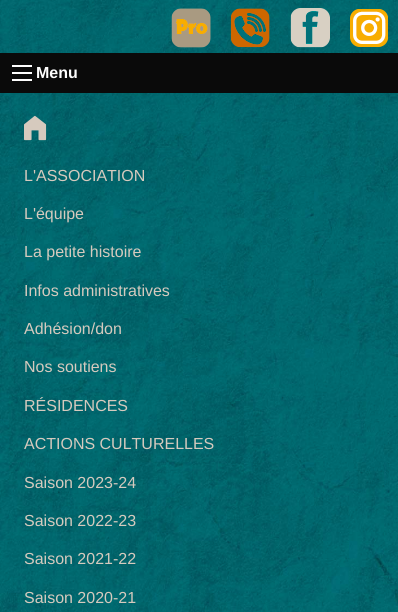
#include <cairo/cairo.h>
#include <math.h>
#include <stddef.h>


static void draw_image(cairo_t *cr, const char *path, double x, double y, double w, double h) {
  cairo_surface_t *image = cairo_image_surface_create_from_png(path);
  cairo_save(cr);
  cairo_set_source_surface(cr, image, x, y);
  cairo_rectangle(cr, x, y, w, h);
  cairo_fill(cr);
  cairo_restore(cr);
  cairo_surface_destroy(image);
}

static void draw(cairo_t *cr) {
  cairo_set_source_rgb(cr, 1, 1, 1);
  cairo_paint(cr);
  draw_image(cr, "images/1.png", 0, 0, 398, 612);
  draw_image(cr, "images/2.png", 171, 8, 40, 40);
  draw_image(cr, "images/3.png", 230, 8, 40, 40);
  draw_image(cr, "images/4.png", 290, 8, 40, 40);
  draw_image(cr, "images/5.png", 350, 9, 38, 38);
  cairo_set_source_rgb(cr, 10 / 255.0, 10 / 255.0, 10 / 255.0);
  cairo_rectangle(cr, 0, 53, 398, 40);
  cairo_fill(cr);
  cairo_set_source_rgb(cr, 254 / 255.0, 254 / 255.0, 254 / 255.0);
  cairo_rectangle(cr, 12, 79, 20, 2);
  cairo_fill(cr);
  cairo_rectangle(cr, 12, 72, 20, 2);
  cairo_fill(cr);
  cairo_rectangle(cr, 12, 65, 20, 2);
  cairo_fill(cr);
  draw_image(cr, "images/6.png", 24, 115, 23, 26);
  cairo_select_font_face(cr, "Liberation Sans", CAIRO_FONT_SLANT_NORMAL, CAIRO_FONT_WEIGHT_BOLD);
  cairo_set_font_size(cr, 16);
  cairo_move_to(cr, 36, 78);
  cairo_show_text(cr, "Menu");
  cairo_select_font_face(cr, "Liberation Sans", CAIRO_FONT_SLANT_NORMAL, CAIRO_FONT_WEIGHT_NORMAL);
  cairo_set_source_rgb(cr, 214 / 255.0, 202 / 255.0, 190 / 255.0);
  cairo_move_to(cr, 24, 181);
  cairo_show_text(cr, "L'ASSOCIATION");
  cairo_move_to(cr, 24, 219);
  cairo_show_text(cr, "L'équipe");
  cairo_move_to(cr, 24, 257);
  cairo_show_text(cr, "La petite histoire");
  cairo_move_to(cr, 24, 296);
  cairo_show_text(cr, "Infos administratives");
  cairo_move_to(cr, 24, 334);
  cairo_show_text(cr, "Adhésion/don");
  cairo_move_to(cr, 24, 372);
  cairo_show_text(cr, "Nos soutiens");
  cairo_move_to(cr, 24, 411);
  cairo_show_text(cr, "RÉSIDENCES");
  cairo_move_to(cr, 24, 449);
  cairo_show_text(cr, "ACTIONS CULTURELLES");
  cairo_move_to(cr, 24, 488);
  cairo_show_text(cr, "Saison 2023-24");
  cairo_move_to(cr, 24, 526);
  cairo_show_text(cr, "Saison 2022-23");
  cairo_move_to(cr, 24, 564);
  cairo_show_text(cr, "Saison 2021-22");
  cairo_move_to(cr, 24, 603);
  cairo_show_text(cr, "Saison 2020-21");
}

int main(void) {
  cairo_surface_t *surface = cairo_image_surface_create(CAIRO_FORMAT_RGB24, 398, 612);
  cairo_t *cr = cairo_create(surface);
  cairo_font_options_t *options = cairo_font_options_create();
  cairo_font_options_set_hint_metrics(options, CAIRO_HINT_METRICS_OFF);
  cairo_font_options_set_hint_style(options, CAIRO_HINT_STYLE_NONE);
  cairo_set_font_options(cr, options);
  cairo_set_miter_limit(cr, 4);
  draw(cr);
  cairo_surface_write_to_png(surface, "out.png");
  cairo_font_options_destroy(options);
  cairo_destroy(cr);
  cairo_surface_destroy(surface);
  return 0;
}
